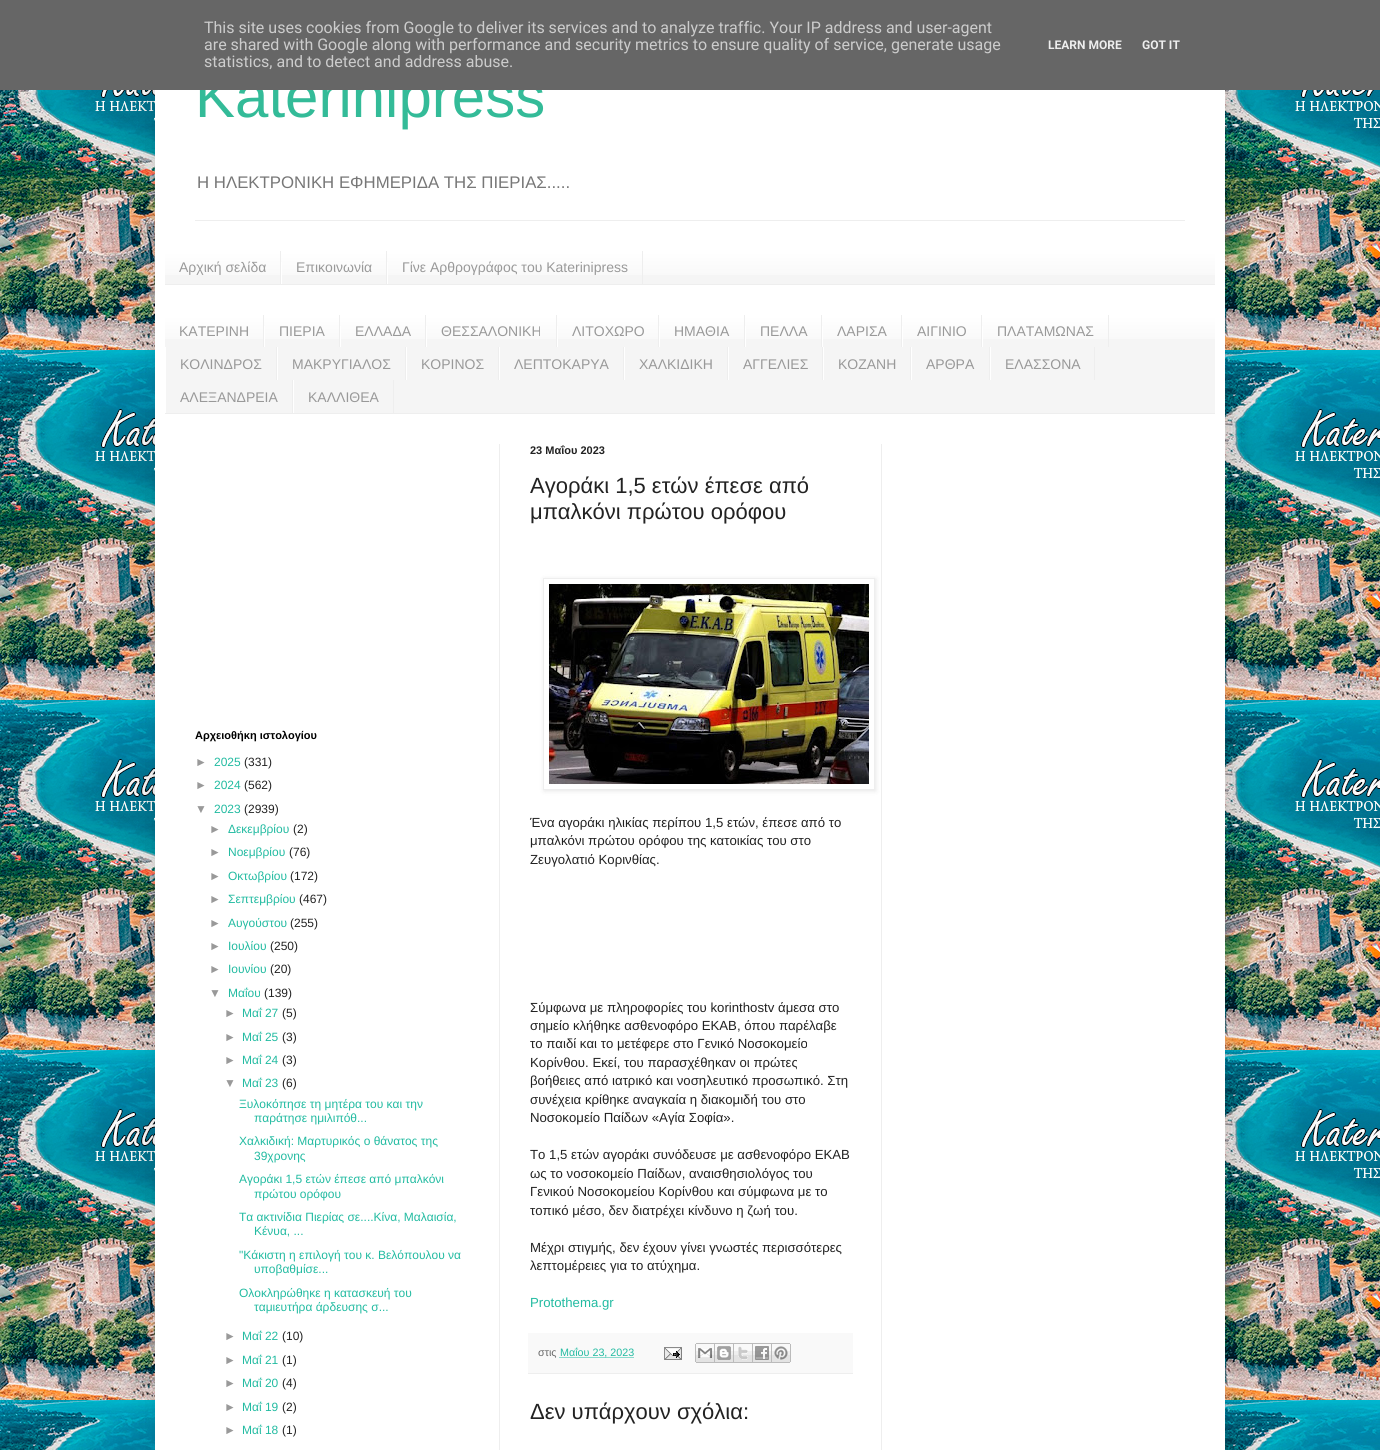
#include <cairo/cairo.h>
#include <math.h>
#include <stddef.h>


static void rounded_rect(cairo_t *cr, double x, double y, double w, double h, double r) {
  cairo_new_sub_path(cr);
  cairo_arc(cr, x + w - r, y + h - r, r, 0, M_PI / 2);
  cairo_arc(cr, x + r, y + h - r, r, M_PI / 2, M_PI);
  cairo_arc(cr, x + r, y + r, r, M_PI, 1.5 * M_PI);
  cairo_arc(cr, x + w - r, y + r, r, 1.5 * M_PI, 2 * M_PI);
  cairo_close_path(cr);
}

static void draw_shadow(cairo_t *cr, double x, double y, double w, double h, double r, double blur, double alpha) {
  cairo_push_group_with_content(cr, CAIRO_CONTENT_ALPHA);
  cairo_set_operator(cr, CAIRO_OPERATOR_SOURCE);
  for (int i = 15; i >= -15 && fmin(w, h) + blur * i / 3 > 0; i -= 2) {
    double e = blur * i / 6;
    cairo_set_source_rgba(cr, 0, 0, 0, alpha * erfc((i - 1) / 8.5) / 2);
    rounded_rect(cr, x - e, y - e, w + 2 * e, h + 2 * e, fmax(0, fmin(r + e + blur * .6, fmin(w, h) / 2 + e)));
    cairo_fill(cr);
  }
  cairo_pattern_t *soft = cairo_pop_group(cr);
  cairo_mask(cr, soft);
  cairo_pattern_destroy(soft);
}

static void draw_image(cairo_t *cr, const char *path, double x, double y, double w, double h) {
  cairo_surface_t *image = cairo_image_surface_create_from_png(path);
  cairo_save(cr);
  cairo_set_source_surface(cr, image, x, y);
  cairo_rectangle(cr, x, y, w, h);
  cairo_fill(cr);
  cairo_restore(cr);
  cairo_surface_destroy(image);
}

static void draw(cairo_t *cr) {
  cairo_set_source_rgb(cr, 1, 1, 1);
  cairo_paint(cr);
  draw_image(cr, "images/1.png", 0, 90, 1380, 1360);
  cairo_set_source_rgb(cr, 0, 0, 0);
  draw_shadow(cr, 155, 30, 1070, 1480, 0, 20, 0.15);
  cairo_set_source_rgb(cr, 1, 1, 1);
  cairo_rectangle(cr, 155, 90, 1070, 1360);
  cairo_fill(cr);
  cairo_set_source_rgb(cr, 238 / 255.0, 238 / 255.0, 238 / 255.0);
  cairo_rectangle(cr, 195, 220, 990, 1);
  cairo_fill(cr);
  cairo_set_source_rgb(cr, 245 / 255.0, 245 / 255.0, 245 / 255.0);
  cairo_rectangle(cr, 165, 252, 1050, 32);
  cairo_fill(cr);
  draw_image(cr, "images/2.png", 165, 251, 1050, 24);
  cairo_set_source_rgb(cr, 238 / 255.0, 238 / 255.0, 238 / 255.0);
  cairo_rectangle(cr, 165, 284, 1050, 1);
  cairo_fill(cr);
  cairo_rectangle(cr, 280, 251, 1, 33);
  cairo_fill(cr);
  cairo_rectangle(cr, 386, 251, 1, 33);
  cairo_fill(cr);
  cairo_set_source_rgb(cr, 1, 1, 1);
  cairo_rectangle(cr, 281, 262, 1, 22);
  cairo_fill(cr);
  cairo_set_source_rgb(cr, 238 / 255.0, 238 / 255.0, 238 / 255.0);
  cairo_rectangle(cr, 642, 251, 1, 33);
  cairo_fill(cr);
  cairo_set_source_rgb(cr, 1, 1, 1);
  cairo_rectangle(cr, 387, 262, 1, 22);
  cairo_fill(cr);
  cairo_set_source_rgb(cr, 245 / 255.0, 245 / 255.0, 245 / 255.0);
  cairo_rectangle(cr, 165, 316, 1050, 97);
  cairo_fill(cr);
  draw_image(cr, "images/2.png", 165, 315, 1050, 24);
  cairo_set_source_rgb(cr, 238 / 255.0, 238 / 255.0, 238 / 255.0);
  cairo_rectangle(cr, 165, 413, 1050, 1);
  cairo_fill(cr);
  cairo_rectangle(cr, 263, 315, 1, 32);
  cairo_fill(cr);
  cairo_rectangle(cr, 339, 315, 1, 32);
  cairo_fill(cr);
  cairo_set_source_rgb(cr, 1, 1, 1);
  cairo_rectangle(cr, 264, 326, 1, 21);
  cairo_fill(cr);
  cairo_set_source_rgb(cr, 238 / 255.0, 238 / 255.0, 238 / 255.0);
  cairo_rectangle(cr, 425, 315, 1, 32);
  cairo_fill(cr);
  cairo_set_source_rgb(cr, 1, 1, 1);
  cairo_rectangle(cr, 340, 326, 1, 21);
  cairo_fill(cr);
  cairo_set_source_rgb(cr, 238 / 255.0, 238 / 255.0, 238 / 255.0);
  cairo_rectangle(cr, 556, 315, 1, 32);
  cairo_fill(cr);
  cairo_set_source_rgb(cr, 1, 1, 1);
  cairo_rectangle(cr, 426, 326, 1, 21);
  cairo_fill(cr);
  cairo_set_source_rgb(cr, 238 / 255.0, 238 / 255.0, 238 / 255.0);
  cairo_rectangle(cr, 658, 315, 1, 32);
  cairo_fill(cr);
  cairo_set_source_rgb(cr, 1, 1, 1);
  cairo_rectangle(cr, 557, 326, 1, 21);
  cairo_fill(cr);
  cairo_set_source_rgb(cr, 238 / 255.0, 238 / 255.0, 238 / 255.0);
  cairo_rectangle(cr, 744, 315, 1, 32);
  cairo_fill(cr);
  cairo_set_source_rgb(cr, 1, 1, 1);
  cairo_rectangle(cr, 659, 326, 1, 21);
  cairo_fill(cr);
  cairo_set_source_rgb(cr, 238 / 255.0, 238 / 255.0, 238 / 255.0);
  cairo_rectangle(cr, 821, 315, 1, 32);
  cairo_fill(cr);
  cairo_set_source_rgb(cr, 1, 1, 1);
  cairo_rectangle(cr, 745, 326, 1, 21);
  cairo_fill(cr);
  cairo_set_source_rgb(cr, 238 / 255.0, 238 / 255.0, 238 / 255.0);
  cairo_rectangle(cr, 901, 315, 1, 32);
  cairo_fill(cr);
  cairo_set_source_rgb(cr, 1, 1, 1);
  cairo_rectangle(cr, 822, 326, 1, 21);
  cairo_fill(cr);
  cairo_set_source_rgb(cr, 238 / 255.0, 238 / 255.0, 238 / 255.0);
  cairo_rectangle(cr, 981, 315, 1, 32);
  cairo_fill(cr);
  cairo_set_source_rgb(cr, 1, 1, 1);
  cairo_rectangle(cr, 902, 326, 1, 21);
  cairo_fill(cr);
  cairo_set_source_rgb(cr, 238 / 255.0, 238 / 255.0, 238 / 255.0);
  cairo_rectangle(cr, 1108, 315, 1, 32);
  cairo_fill(cr);
  cairo_set_source_rgb(cr, 1, 1, 1);
  cairo_rectangle(cr, 982, 326, 1, 21);
  cairo_fill(cr);
  cairo_set_source_rgb(cr, 238 / 255.0, 238 / 255.0, 238 / 255.0);
  cairo_rectangle(cr, 276, 347, 1, 33);
  cairo_fill(cr);
  cairo_set_source_rgb(cr, 1, 1, 1);
  cairo_rectangle(cr, 165, 347, 1, 66);
  cairo_fill(cr);
  cairo_set_source_rgb(cr, 238 / 255.0, 238 / 255.0, 238 / 255.0);
  cairo_rectangle(cr, 405, 347, 1, 33);
  cairo_fill(cr);
  cairo_set_source_rgb(cr, 1, 1, 1);
  cairo_rectangle(cr, 277, 347, 1, 33);
  cairo_fill(cr);
  cairo_set_source_rgb(cr, 238 / 255.0, 238 / 255.0, 238 / 255.0);
  cairo_rectangle(cr, 498, 347, 1, 33);
  cairo_fill(cr);
  cairo_set_source_rgb(cr, 1, 1, 1);
  cairo_rectangle(cr, 406, 347, 1, 33);
  cairo_fill(cr);
  cairo_set_source_rgb(cr, 238 / 255.0, 238 / 255.0, 238 / 255.0);
  cairo_rectangle(cr, 623, 347, 1, 33);
  cairo_fill(cr);
  cairo_set_source_rgb(cr, 1, 1, 1);
  cairo_rectangle(cr, 499, 347, 1, 33);
  cairo_fill(cr);
  cairo_set_source_rgb(cr, 238 / 255.0, 238 / 255.0, 238 / 255.0);
  cairo_rectangle(cr, 727, 347, 1, 33);
  cairo_fill(cr);
  cairo_set_source_rgb(cr, 1, 1, 1);
  cairo_rectangle(cr, 624, 347, 1, 33);
  cairo_fill(cr);
  cairo_set_source_rgb(cr, 238 / 255.0, 238 / 255.0, 238 / 255.0);
  cairo_rectangle(cr, 822, 347, 1, 33);
  cairo_fill(cr);
  cairo_set_source_rgb(cr, 1, 1, 1);
  cairo_rectangle(cr, 728, 347, 1, 33);
  cairo_fill(cr);
  cairo_set_source_rgb(cr, 238 / 255.0, 238 / 255.0, 238 / 255.0);
  cairo_rectangle(cr, 910, 347, 1, 33);
  cairo_fill(cr);
  cairo_set_source_rgb(cr, 1, 1, 1);
  cairo_rectangle(cr, 823, 347, 1, 33);
  cairo_fill(cr);
  cairo_set_source_rgb(cr, 238 / 255.0, 238 / 255.0, 238 / 255.0);
  cairo_rectangle(cr, 989, 347, 1, 33);
  cairo_fill(cr);
  cairo_set_source_rgb(cr, 1, 1, 1);
  cairo_rectangle(cr, 911, 347, 1, 33);
  cairo_fill(cr);
  cairo_set_source_rgb(cr, 238 / 255.0, 238 / 255.0, 238 / 255.0);
  cairo_rectangle(cr, 1094, 347, 1, 33);
  cairo_fill(cr);
  cairo_set_source_rgb(cr, 1, 1, 1);
  cairo_rectangle(cr, 990, 347, 1, 33);
  cairo_fill(cr);
  cairo_set_source_rgb(cr, 238 / 255.0, 238 / 255.0, 238 / 255.0);
  cairo_rectangle(cr, 292, 380, 1, 33);
  cairo_fill(cr);
  cairo_rectangle(cr, 393, 380, 1, 33);
  cairo_fill(cr);
  cairo_set_source_rgb(cr, 1, 1, 1);
  cairo_rectangle(cr, 293, 380, 1, 33);
  cairo_fill(cr);
  cairo_set_source_rgb(cr, 238 / 255.0, 238 / 255.0, 238 / 255.0);
  cairo_rectangle(cr, 499, 444, 1, 1006);
  cairo_fill(cr);
  cairo_rectangle(cr, 881, 444, 1, 1006);
  cairo_fill(cr);
  cairo_save(cr);
  cairo_set_fill_rule(cr, CAIRO_FILL_RULE_EVEN_ODD);
  cairo_new_path(cr);
  cairo_move_to(cr, 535, 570);
  cairo_line_to(cr, 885, 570);
  cairo_line_to(cr, 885, 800);
  cairo_line_to(cr, 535, 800);
  cairo_close_path(cr);
  cairo_move_to(cr, 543, 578);
  cairo_line_to(cr, 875, 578);
  cairo_line_to(cr, 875, 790);
  cairo_line_to(cr, 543, 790);
  cairo_close_path(cr);
  cairo_clip(cr);
  cairo_set_source_rgb(cr, 0, 0, 0);
  draw_shadow(cr, 544, 579, 332, 212, 0, 2.5, 0.1);
  cairo_restore(cr);
  cairo_rectangle(cr, 543.5, 578.5, 331, 211);
  cairo_set_line_width(cr, 1);
  cairo_stroke(cr);
  draw_image(cr, "images/3.png", 549, 584, 320, 200);
  cairo_set_source_rgb(cr, 249 / 255.0, 249 / 255.0, 249 / 255.0);
  cairo_rectangle(cr, 528, 1333, 325, 40);
  cairo_fill(cr);
  cairo_set_source_rgb(cr, 238 / 255.0, 238 / 255.0, 238 / 255.0);
  cairo_rectangle(cr, 528, 1373, 325, 1);
  cairo_fill(cr);
  cairo_new_path(cr);
  cairo_move_to(cr, 559.5, 1357.5);
  cairo_line_to(cr, 634, 1357.5);
  cairo_set_source_rgb(cr, 34 / 255.0, 187 / 255.0, 161 / 255.0);
  cairo_set_dash(cr, (double[]){1, 1}, 2, 0);
  cairo_stroke(cr);
  draw_image(cr, "images/4.png", 664, 1347, 18, 13);
  draw_image(cr, "images/5.png", 695, 1343, 20, 20);
  draw_image(cr, "images/6.png", 715, 1343, 19, 20);
  draw_image(cr, "images/7.png", 734, 1343, 19, 20);
  draw_image(cr, "images/8.png", 753, 1343, 19, 20);
  draw_image(cr, "images/9.png", 772, 1343, 19, 20);
  cairo_select_font_face(cr, "Liberation Sans", CAIRO_FONT_SLANT_NORMAL, CAIRO_FONT_WEIGHT_NORMAL);
  cairo_set_font_size(cr, 60);
  cairo_set_source_rgb(cr, 51 / 255.0, 187 / 255.0, 152 / 255.0);
  cairo_move_to(cr, 195, 117);
  cairo_show_text(cr, "Katerinipress");
  cairo_set_source_rgb(cr, 102 / 255.0, 102 / 255.0, 102 / 255.0);
  cairo_rectangle(cr, 0, 0, 1380, 90);
  cairo_fill(cr);
  cairo_select_font_face(cr, "Roboto", CAIRO_FONT_SLANT_NORMAL, CAIRO_FONT_WEIGHT_BOLD);
  cairo_set_font_size(cr, 12);
  cairo_set_source_rgb(cr, 238 / 255.0, 238 / 255.0, 238 / 255.0);
  cairo_move_to(cr, 1142, 49);
  cairo_show_text(cr, "GOT IT");
  cairo_move_to(cr, 1048, 49);
  cairo_show_text(cr, "LEARN MORE");
  cairo_select_font_face(cr, "Roboto", CAIRO_FONT_SLANT_NORMAL, CAIRO_FONT_WEIGHT_NORMAL);
  cairo_set_font_size(cr, 16);
  cairo_set_source_rgb(cr, 204 / 255.0, 204 / 255.0, 204 / 255.0);
  cairo_move_to(cr, 204, 67);
  cairo_show_text(cr, "statistics, and to detect and address abuse.");
  cairo_move_to(cr, 204, 50);
  cairo_show_text(cr, "are shared with Google along with performance and security metrics to ensure quality of service, generate usage");
  cairo_move_to(cr, 204, 33);
  cairo_show_text(cr, "This site uses cookies from Google to deliver its services and to analyze traffic. Your IP address and user-agent");
  cairo_select_font_face(cr, "Liberation Sans", CAIRO_FONT_SLANT_NORMAL, CAIRO_FONT_WEIGHT_NORMAL);
  cairo_set_font_size(cr, 16.8);
  cairo_set_source_rgb(cr, 119 / 255.0, 119 / 255.0, 119 / 255.0);
  cairo_move_to(cr, 197, 188);
  cairo_show_text(cr, "Η ΗΛΕΚΤΡΟΝΙΚΗ ΕΦΗΜΕΡΙΔΑ ΤΗΣ ΠΙΕΡΙΑΣ.....");
  cairo_set_font_size(cr, 14);
  cairo_set_source_rgb(cr, 153 / 255.0, 153 / 255.0, 153 / 255.0);
  cairo_move_to(cr, 179, 272);
  cairo_show_text(cr, "Αρχική σελίδα");
  cairo_move_to(cr, 296, 272);
  cairo_show_text(cr, "Επικοινωνία");
  cairo_move_to(cr, 402, 272);
  cairo_show_text(cr, "Γίνε Αρθρογράφος του Katerinipress");
  cairo_move_to(cr, 179, 336);
  cairo_show_text(cr, "ΚΑΤΕΡΙΝΗ");
  cairo_move_to(cr, 279, 336);
  cairo_show_text(cr, "ΠΙΕΡΙΑ");
  cairo_move_to(cr, 355, 336);
  cairo_show_text(cr, "ΕΛΛΑΔΑ");
  cairo_move_to(cr, 441, 336);
  cairo_show_text(cr, "ΘΕΣΣΑΛΟΝΙΚΗ");
  cairo_move_to(cr, 572, 336);
  cairo_show_text(cr, "ΛΙΤΟΧΩΡΟ");
  cairo_move_to(cr, 674, 336);
  cairo_show_text(cr, "ΗΜΑΘΙΑ");
  cairo_move_to(cr, 760, 336);
  cairo_show_text(cr, "ΠΕΛΛΑ");
  cairo_move_to(cr, 837, 336);
  cairo_show_text(cr, "ΛΑΡΙΣΑ");
  cairo_move_to(cr, 917, 336);
  cairo_show_text(cr, "ΑΙΓΙΝΙΟ");
  cairo_move_to(cr, 997, 336);
  cairo_show_text(cr, "ΠΛΑΤΑΜΩΝΑΣ");
  cairo_move_to(cr, 180, 369);
  cairo_show_text(cr, "ΚΟΛΙΝΔΡΟΣ");
  cairo_move_to(cr, 292, 369);
  cairo_show_text(cr, "ΜΑΚΡΥΓΙΑΛΟΣ");
  cairo_move_to(cr, 421, 369);
  cairo_show_text(cr, "ΚΟΡΙΝΟΣ");
  cairo_move_to(cr, 514, 369);
  cairo_show_text(cr, "ΛΕΠΤΟΚΑΡΥΑ");
  cairo_move_to(cr, 639, 369);
  cairo_show_text(cr, "ΧΑΛΚΙΔΙΚΗ");
  cairo_move_to(cr, 743, 369);
  cairo_show_text(cr, "ΑΓΓΕΛΙΕΣ");
  cairo_move_to(cr, 838, 369);
  cairo_show_text(cr, "ΚΟΖΑΝΗ");
  cairo_move_to(cr, 926, 369);
  cairo_show_text(cr, "ΑΡΘΡΑ");
  cairo_move_to(cr, 1005, 369);
  cairo_show_text(cr, "ΕΛΑΣΣΟΝΑ");
  cairo_move_to(cr, 180, 402);
  cairo_show_text(cr, "ΑΛΕΞΑΝΔΡΕΙΑ");
  cairo_move_to(cr, 308, 402);
  cairo_show_text(cr, "ΚΑΛΛΙΘΕΑ");
  cairo_select_font_face(cr, "Liberation Sans", CAIRO_FONT_SLANT_NORMAL, CAIRO_FONT_WEIGHT_BOLD);
  cairo_set_font_size(cr, 11);
  cairo_set_source_rgb(cr, 0, 0, 0);
  cairo_move_to(cr, 195, 739);
  cairo_show_text(cr, "Αρχειοθήκη ιστολογίου");
  cairo_select_font_face(cr, "Liberation Sans", CAIRO_FONT_SLANT_NORMAL, CAIRO_FONT_WEIGHT_NORMAL);
  cairo_set_font_size(cr, 12);
  cairo_set_source_rgb(cr, 153 / 255.0, 153 / 255.0, 153 / 255.0);
  cairo_move_to(cr, 195, 766);
  cairo_show_text(cr, "►");
  cairo_set_source_rgb(cr, 34 / 255.0, 187 / 255.0, 161 / 255.0);
  cairo_move_to(cr, 214, 766);
  cairo_show_text(cr, "2025");
  cairo_set_source_rgb(cr, 34 / 255.0, 34 / 255.0, 34 / 255.0);
  cairo_move_to(cr, 244, 766);
  cairo_show_text(cr, "(331)");
  cairo_set_source_rgb(cr, 153 / 255.0, 153 / 255.0, 153 / 255.0);
  cairo_move_to(cr, 195, 789);
  cairo_show_text(cr, "►");
  cairo_set_source_rgb(cr, 34 / 255.0, 187 / 255.0, 161 / 255.0);
  cairo_move_to(cr, 214, 789);
  cairo_show_text(cr, "2024");
  cairo_set_source_rgb(cr, 34 / 255.0, 34 / 255.0, 34 / 255.0);
  cairo_move_to(cr, 244, 789);
  cairo_show_text(cr, "(562)");
  cairo_set_source_rgb(cr, 153 / 255.0, 153 / 255.0, 153 / 255.0);
  cairo_move_to(cr, 195, 813);
  cairo_show_text(cr, "▼");
  cairo_set_source_rgb(cr, 34 / 255.0, 187 / 255.0, 161 / 255.0);
  cairo_move_to(cr, 214, 813);
  cairo_show_text(cr, "2023");
  cairo_set_source_rgb(cr, 34 / 255.0, 34 / 255.0, 34 / 255.0);
  cairo_move_to(cr, 244, 813);
  cairo_show_text(cr, "(2939)");
  cairo_set_source_rgb(cr, 153 / 255.0, 153 / 255.0, 153 / 255.0);
  cairo_move_to(cr, 209, 833);
  cairo_show_text(cr, "►");
  cairo_set_source_rgb(cr, 34 / 255.0, 187 / 255.0, 161 / 255.0);
  cairo_move_to(cr, 228, 833);
  cairo_show_text(cr, "Δεκεμβρίου");
  cairo_set_source_rgb(cr, 34 / 255.0, 34 / 255.0, 34 / 255.0);
  cairo_move_to(cr, 293, 833);
  cairo_show_text(cr, "(2)");
  cairo_set_source_rgb(cr, 153 / 255.0, 153 / 255.0, 153 / 255.0);
  cairo_move_to(cr, 209, 856);
  cairo_show_text(cr, "►");
  cairo_set_source_rgb(cr, 34 / 255.0, 187 / 255.0, 161 / 255.0);
  cairo_move_to(cr, 228, 856);
  cairo_show_text(cr, "Νοεμβρίου");
  cairo_set_source_rgb(cr, 34 / 255.0, 34 / 255.0, 34 / 255.0);
  cairo_move_to(cr, 289, 856);
  cairo_show_text(cr, "(76)");
  cairo_set_source_rgb(cr, 153 / 255.0, 153 / 255.0, 153 / 255.0);
  cairo_move_to(cr, 209, 880);
  cairo_show_text(cr, "►");
  cairo_set_source_rgb(cr, 34 / 255.0, 187 / 255.0, 161 / 255.0);
  cairo_move_to(cr, 228, 880);
  cairo_show_text(cr, "Οκτωβρίου");
  cairo_set_source_rgb(cr, 34 / 255.0, 34 / 255.0, 34 / 255.0);
  cairo_move_to(cr, 290, 880);
  cairo_show_text(cr, "(172)");
  cairo_set_source_rgb(cr, 153 / 255.0, 153 / 255.0, 153 / 255.0);
  cairo_move_to(cr, 209, 903);
  cairo_show_text(cr, "►");
  cairo_set_source_rgb(cr, 34 / 255.0, 187 / 255.0, 161 / 255.0);
  cairo_move_to(cr, 228, 903);
  cairo_show_text(cr, "Σεπτεμβρίου");
  cairo_set_source_rgb(cr, 34 / 255.0, 34 / 255.0, 34 / 255.0);
  cairo_move_to(cr, 299, 903);
  cairo_show_text(cr, "(467)");
  cairo_set_source_rgb(cr, 153 / 255.0, 153 / 255.0, 153 / 255.0);
  cairo_move_to(cr, 209, 927);
  cairo_show_text(cr, "►");
  cairo_set_source_rgb(cr, 34 / 255.0, 187 / 255.0, 161 / 255.0);
  cairo_move_to(cr, 228, 927);
  cairo_show_text(cr, "Αυγούστου");
  cairo_set_source_rgb(cr, 34 / 255.0, 34 / 255.0, 34 / 255.0);
  cairo_move_to(cr, 290, 927);
  cairo_show_text(cr, "(255)");
  cairo_set_source_rgb(cr, 153 / 255.0, 153 / 255.0, 153 / 255.0);
  cairo_move_to(cr, 209, 950);
  cairo_show_text(cr, "►");
  cairo_set_source_rgb(cr, 34 / 255.0, 187 / 255.0, 161 / 255.0);
  cairo_move_to(cr, 228, 950);
  cairo_show_text(cr, "Ιουλίου");
  cairo_set_source_rgb(cr, 34 / 255.0, 34 / 255.0, 34 / 255.0);
  cairo_move_to(cr, 270, 950);
  cairo_show_text(cr, "(250)");
  cairo_set_source_rgb(cr, 153 / 255.0, 153 / 255.0, 153 / 255.0);
  cairo_move_to(cr, 209, 973);
  cairo_show_text(cr, "►");
  cairo_set_source_rgb(cr, 34 / 255.0, 187 / 255.0, 161 / 255.0);
  cairo_move_to(cr, 228, 973);
  cairo_show_text(cr, "Ιουνίου");
  cairo_set_source_rgb(cr, 34 / 255.0, 34 / 255.0, 34 / 255.0);
  cairo_move_to(cr, 270, 973);
  cairo_show_text(cr, "(20)");
  cairo_set_source_rgb(cr, 153 / 255.0, 153 / 255.0, 153 / 255.0);
  cairo_move_to(cr, 209, 997);
  cairo_show_text(cr, "▼");
  cairo_set_source_rgb(cr, 34 / 255.0, 187 / 255.0, 161 / 255.0);
  cairo_move_to(cr, 228, 997);
  cairo_show_text(cr, "Μαΐου");
  cairo_set_source_rgb(cr, 34 / 255.0, 34 / 255.0, 34 / 255.0);
  cairo_move_to(cr, 264, 997);
  cairo_show_text(cr, "(139)");
  cairo_set_source_rgb(cr, 153 / 255.0, 153 / 255.0, 153 / 255.0);
  cairo_move_to(cr, 224, 1017);
  cairo_show_text(cr, "►");
  cairo_set_source_rgb(cr, 34 / 255.0, 187 / 255.0, 161 / 255.0);
  cairo_move_to(cr, 242, 1017);
  cairo_show_text(cr, "Μαΐ 27");
  cairo_set_source_rgb(cr, 34 / 255.0, 34 / 255.0, 34 / 255.0);
  cairo_move_to(cr, 282, 1017);
  cairo_show_text(cr, "(5)");
  cairo_set_source_rgb(cr, 153 / 255.0, 153 / 255.0, 153 / 255.0);
  cairo_move_to(cr, 224, 1041);
  cairo_show_text(cr, "►");
  cairo_set_source_rgb(cr, 34 / 255.0, 187 / 255.0, 161 / 255.0);
  cairo_move_to(cr, 242, 1041);
  cairo_show_text(cr, "Μαΐ 25");
  cairo_set_source_rgb(cr, 34 / 255.0, 34 / 255.0, 34 / 255.0);
  cairo_move_to(cr, 282, 1041);
  cairo_show_text(cr, "(3)");
  cairo_set_source_rgb(cr, 153 / 255.0, 153 / 255.0, 153 / 255.0);
  cairo_move_to(cr, 224, 1064);
  cairo_show_text(cr, "►");
  cairo_set_source_rgb(cr, 34 / 255.0, 187 / 255.0, 161 / 255.0);
  cairo_move_to(cr, 242, 1064);
  cairo_show_text(cr, "Μαΐ 24");
  cairo_set_source_rgb(cr, 34 / 255.0, 34 / 255.0, 34 / 255.0);
  cairo_move_to(cr, 282, 1064);
  cairo_show_text(cr, "(3)");
  cairo_set_source_rgb(cr, 153 / 255.0, 153 / 255.0, 153 / 255.0);
  cairo_move_to(cr, 224, 1087);
  cairo_show_text(cr, "▼");
  cairo_set_source_rgb(cr, 34 / 255.0, 187 / 255.0, 161 / 255.0);
  cairo_move_to(cr, 242, 1087);
  cairo_show_text(cr, "Μαΐ 23");
  cairo_set_source_rgb(cr, 34 / 255.0, 34 / 255.0, 34 / 255.0);
  cairo_move_to(cr, 282, 1087);
  cairo_show_text(cr, "(6)");
  cairo_set_source_rgb(cr, 34 / 255.0, 187 / 255.0, 161 / 255.0);
  cairo_move_to(cr, 239, 1108);
  cairo_show_text(cr, "Ξυλοκόπησε τη μητέρα του και την");
  cairo_move_to(cr, 254, 1122);
  cairo_show_text(cr, "παράτησε ημιλιπόθ...");
  cairo_move_to(cr, 239, 1145);
  cairo_show_text(cr, "Χαλκιδική: Μαρτυρικός ο θάνατος της");
  cairo_move_to(cr, 254, 1160);
  cairo_show_text(cr, "39χρονης");
  cairo_move_to(cr, 239, 1183);
  cairo_show_text(cr, "Aγοράκι 1,5 ετών έπεσε από μπαλκόνι");
  cairo_move_to(cr, 254, 1198);
  cairo_show_text(cr, "πρώτου ορόφου");
  cairo_move_to(cr, 239, 1221);
  cairo_show_text(cr, "Τα ακτινίδια Πιερίας σε....Κίνα, Μαλαισία,");
  cairo_move_to(cr, 254, 1235);
  cairo_show_text(cr, "Κένυα, ...");
  cairo_move_to(cr, 239, 1259);
  cairo_show_text(cr, "\"Κάκιστη η επιλογή του κ. Βελόπουλου να");
  cairo_move_to(cr, 254, 1273);
  cairo_show_text(cr, "υποβαθμίσε...");
  cairo_move_to(cr, 239, 1297);
  cairo_show_text(cr, "Ολοκληρώθηκε η κατασκευή του");
  cairo_move_to(cr, 254, 1311);
  cairo_show_text(cr, "ταμιευτήρα άρδευσης σ...");
  cairo_set_source_rgb(cr, 153 / 255.0, 153 / 255.0, 153 / 255.0);
  cairo_move_to(cr, 224, 1340);
  cairo_show_text(cr, "►");
  cairo_set_source_rgb(cr, 34 / 255.0, 187 / 255.0, 161 / 255.0);
  cairo_move_to(cr, 242, 1340);
  cairo_show_text(cr, "Μαΐ 22");
  cairo_set_source_rgb(cr, 34 / 255.0, 34 / 255.0, 34 / 255.0);
  cairo_move_to(cr, 282, 1340);
  cairo_show_text(cr, "(10)");
  cairo_set_source_rgb(cr, 153 / 255.0, 153 / 255.0, 153 / 255.0);
  cairo_move_to(cr, 224, 1364);
  cairo_show_text(cr, "►");
  cairo_set_source_rgb(cr, 34 / 255.0, 187 / 255.0, 161 / 255.0);
  cairo_move_to(cr, 242, 1364);
  cairo_show_text(cr, "Μαΐ 21");
  cairo_set_source_rgb(cr, 34 / 255.0, 34 / 255.0, 34 / 255.0);
  cairo_move_to(cr, 282, 1364);
  cairo_show_text(cr, "(1)");
  cairo_set_source_rgb(cr, 153 / 255.0, 153 / 255.0, 153 / 255.0);
  cairo_move_to(cr, 224, 1387);
  cairo_show_text(cr, "►");
  cairo_set_source_rgb(cr, 34 / 255.0, 187 / 255.0, 161 / 255.0);
  cairo_move_to(cr, 242, 1387);
  cairo_show_text(cr, "Μαΐ 20");
  cairo_set_source_rgb(cr, 34 / 255.0, 34 / 255.0, 34 / 255.0);
  cairo_move_to(cr, 282, 1387);
  cairo_show_text(cr, "(4)");
  cairo_set_source_rgb(cr, 153 / 255.0, 153 / 255.0, 153 / 255.0);
  cairo_move_to(cr, 224, 1411);
  cairo_show_text(cr, "►");
  cairo_set_source_rgb(cr, 34 / 255.0, 187 / 255.0, 161 / 255.0);
  cairo_move_to(cr, 242, 1411);
  cairo_show_text(cr, "Μαΐ 19");
  cairo_set_source_rgb(cr, 34 / 255.0, 34 / 255.0, 34 / 255.0);
  cairo_move_to(cr, 282, 1411);
  cairo_show_text(cr, "(2)");
  cairo_set_source_rgb(cr, 153 / 255.0, 153 / 255.0, 153 / 255.0);
  cairo_move_to(cr, 224, 1434);
  cairo_show_text(cr, "►");
  cairo_set_source_rgb(cr, 34 / 255.0, 187 / 255.0, 161 / 255.0);
  cairo_move_to(cr, 242, 1434);
  cairo_show_text(cr, "Μαΐ 18");
  cairo_set_source_rgb(cr, 34 / 255.0, 34 / 255.0, 34 / 255.0);
  cairo_move_to(cr, 282, 1434);
  cairo_show_text(cr, "(1)");
  cairo_select_font_face(cr, "Liberation Sans", CAIRO_FONT_SLANT_NORMAL, CAIRO_FONT_WEIGHT_BOLD);
  cairo_set_font_size(cr, 11);
  cairo_move_to(cr, 530, 454);
  cairo_show_text(cr, "23 Μαΐου 2023");
  cairo_select_font_face(cr, "Liberation Sans", CAIRO_FONT_SLANT_NORMAL, CAIRO_FONT_WEIGHT_NORMAL);
  cairo_set_font_size(cr, 22);
  cairo_move_to(cr, 530, 493);
  cairo_show_text(cr, "Aγοράκι 1,5 ετών έπεσε από");
  cairo_move_to(cr, 530, 519);
  cairo_show_text(cr, "μπαλκόνι πρώτου ορόφου");
  cairo_set_font_size(cr, 13.2);
  cairo_move_to(cr, 530, 827);
  cairo_show_text(cr, "Ένα αγοράκι ηλικίας περίπου 1,5 ετών, έπεσε από το");
  cairo_move_to(cr, 530, 845);
  cairo_show_text(cr, "μπαλκόνι πρώτου ορόφου της κατοικίας του στο");
  cairo_move_to(cr, 530, 864);
  cairo_show_text(cr, "Ζευγολατιό Κορινθίας.");
  cairo_move_to(cr, 530, 1012);
  cairo_show_text(cr, "Σύμφωνα με πληροφορίες του korinthostv άμεσα στο");
  cairo_move_to(cr, 530, 1030);
  cairo_show_text(cr, "σημείο κλήθηκε ασθενοφόρο ΕΚΑΒ, όπου παρέλαβε");
  cairo_move_to(cr, 530, 1048);
  cairo_show_text(cr, "το παιδί και το μετέφερε στο Γενικό Νοσοκομείο");
  cairo_move_to(cr, 530, 1067);
  cairo_show_text(cr, "Κορίνθου. Εκεί, του παρασχέθηκαν οι πρώτες");
  cairo_move_to(cr, 530, 1085);
  cairo_show_text(cr, "βοήθειες από ιατρικό και νοσηλευτικό προσωπικό. Στη");
  cairo_move_to(cr, 530, 1104);
  cairo_show_text(cr, "συνέχεια κρίθηκε αναγκαία η διακομιδή του στο");
  cairo_move_to(cr, 530, 1122);
  cairo_show_text(cr, "Νοσοκομείο Παίδων «Αγία Σοφία».");
  cairo_move_to(cr, 530, 1159);
  cairo_show_text(cr, "Το 1,5 ετών αγοράκι συνόδευσε με ασθενοφόρο ΕΚΑΒ");
  cairo_move_to(cr, 530, 1178);
  cairo_show_text(cr, "ως το νοσοκομείο Παίδων, αναισθησιολόγος του");
  cairo_move_to(cr, 530, 1196);
  cairo_show_text(cr, "Γενικού Νοσοκομείου Κορίνθου και σύμφωνα με το");
  cairo_move_to(cr, 530, 1215);
  cairo_show_text(cr, "τοπικό μέσο, δεν διατρέχει κίνδυνο η ζωή του.");
  cairo_move_to(cr, 530, 1252);
  cairo_show_text(cr, "Μέχρι στιγμής, δεν έχουν γίνει γνωστές περισσότερες");
  cairo_move_to(cr, 530, 1270);
  cairo_show_text(cr, "λεπτομέρειες για το ατύχημα.");
  cairo_set_source_rgb(cr, 34 / 255.0, 187 / 255.0, 161 / 255.0);
  cairo_move_to(cr, 530, 1307);
  cairo_show_text(cr, "Protothema.gr");
  cairo_set_font_size(cr, 10.75);
  cairo_set_source_rgb(cr, 102 / 255.0, 102 / 255.0, 102 / 255.0);
  cairo_move_to(cr, 538, 1356);
  cairo_show_text(cr, "στις");
  cairo_set_source_rgb(cr, 34 / 255.0, 187 / 255.0, 161 / 255.0);
  cairo_move_to(cr, 560, 1356);
  cairo_show_text(cr, "Μαΐου 23, 2023");
  cairo_set_font_size(cr, 22);
  cairo_set_source_rgb(cr, 34 / 255.0, 34 / 255.0, 34 / 255.0);
  cairo_move_to(cr, 530, 1419);
  cairo_show_text(cr, "Δεν υπάρχουν σχόλια:");
}

int main(void) {
  cairo_surface_t *surface = cairo_image_surface_create(CAIRO_FORMAT_RGB24, 1380, 1450);
  cairo_t *cr = cairo_create(surface);
  cairo_font_options_t *options = cairo_font_options_create();
  cairo_font_options_set_hint_metrics(options, CAIRO_HINT_METRICS_OFF);
  cairo_font_options_set_hint_style(options, CAIRO_HINT_STYLE_NONE);
  cairo_set_font_options(cr, options);
  cairo_set_miter_limit(cr, 4);
  draw(cr);
  cairo_surface_write_to_png(surface, "out.png");
  cairo_font_options_destroy(options);
  cairo_destroy(cr);
  cairo_surface_destroy(surface);
  return 0;
}
